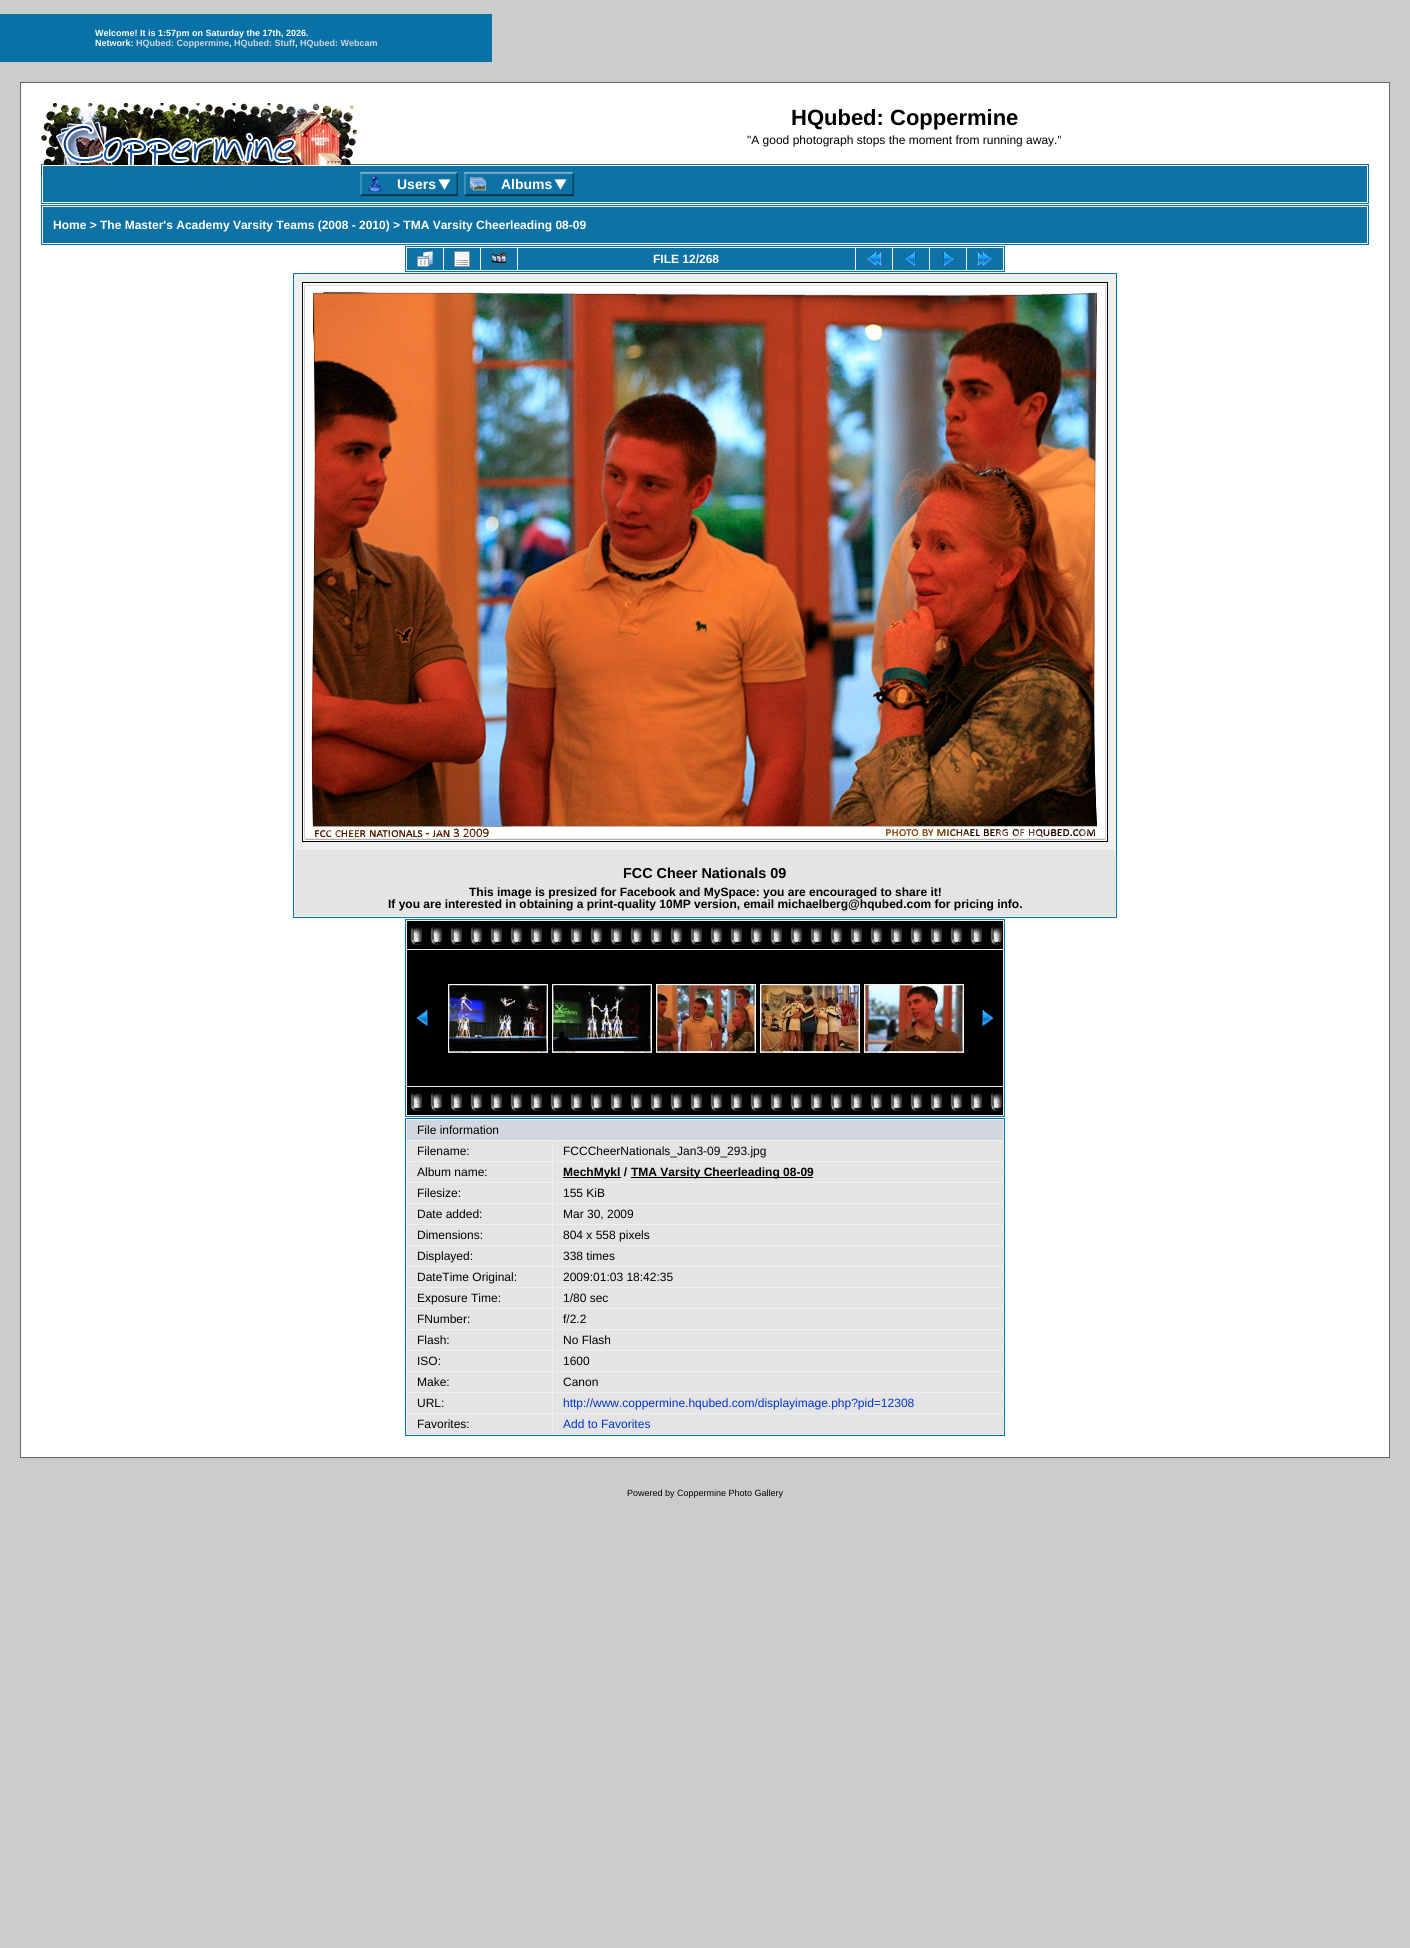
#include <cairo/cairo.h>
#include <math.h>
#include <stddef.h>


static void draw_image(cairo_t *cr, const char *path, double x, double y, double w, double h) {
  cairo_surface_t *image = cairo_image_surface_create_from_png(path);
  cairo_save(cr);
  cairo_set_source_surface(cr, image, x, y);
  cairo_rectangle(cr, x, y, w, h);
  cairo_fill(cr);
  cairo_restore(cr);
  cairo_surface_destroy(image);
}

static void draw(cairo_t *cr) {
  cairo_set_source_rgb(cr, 204 / 255.0, 204 / 255.0, 204 / 255.0);
  cairo_paint(cr);
  cairo_set_source_rgb(cr, 8 / 255.0, 113 / 255.0, 165 / 255.0);
  cairo_rectangle(cr, 0, 14, 492, 48);
  cairo_fill(cr);
  cairo_set_source_rgb(cr, 1, 1, 1);
  cairo_rectangle(cr, 20.5, 82.5, 1369, 1375);
  cairo_fill_preserve(cr);
  cairo_set_source_rgb(cr, 102 / 255.0, 102 / 255.0, 102 / 255.0);
  cairo_set_line_width(cr, 1);
  cairo_stroke(cr);
  cairo_rectangle(cr, 41.5, 164.5, 1327, 39);
  cairo_set_source_rgb(cr, 14 / 255.0, 114 / 255.0, 164 / 255.0);
  cairo_stroke(cr);
  draw_image(cr, "images/1.png", 41, 103, 316, 72);
  cairo_rectangle(cr, 42.5, 165.5, 1325, 37);
  cairo_fill_preserve(cr);
  cairo_set_source_rgb(cr, 1, 1, 1);
  cairo_stroke(cr);
  draw_image(cr, "images/2.png", 360, 171, 101, 26);
  draw_image(cr, "images/3.png", 368, 176, 14, 16);
  draw_image(cr, "images/4.png", 438, 171, 23, 26);
  draw_image(cr, "images/5.png", 464, 171, 113, 26);
  draw_image(cr, "images/6.png", 470, 177, 16, 14);
  draw_image(cr, "images/7.png", 554, 171, 23, 26);
  cairo_set_source_rgb(cr, 239 / 255.0, 239 / 255.0, 239 / 255.0);
  cairo_rectangle(cr, 41.5, 205.5, 1327, 39);
  cairo_fill_preserve(cr);
  cairo_set_source_rgb(cr, 14 / 255.0, 114 / 255.0, 164 / 255.0);
  cairo_stroke(cr);
  cairo_rectangle(cr, 43, 207, 1324, 36);
  cairo_fill(cr);
  cairo_set_source_rgb(cr, 239 / 255.0, 239 / 255.0, 239 / 255.0);
  cairo_rectangle(cr, 405.5, 246.5, 599, 25);
  cairo_fill_preserve(cr);
  cairo_set_source_rgb(cr, 14 / 255.0, 114 / 255.0, 164 / 255.0);
  cairo_stroke(cr);
  cairo_rectangle(cr, 407, 248, 36, 22);
  cairo_fill(cr);
  draw_image(cr, "images/8.png", 417, 251, 16, 16);
  cairo_rectangle(cr, 444, 248, 36, 22);
  cairo_fill(cr);
  draw_image(cr, "images/9.png", 454, 251, 16, 16);
  cairo_rectangle(cr, 481, 248, 36, 22);
  cairo_fill(cr);
  draw_image(cr, "images/10.png", 491, 252, 16, 12);
  cairo_rectangle(cr, 518, 248, 337, 22);
  cairo_fill(cr);
  cairo_rectangle(cr, 856, 248, 36, 22);
  cairo_fill(cr);
  draw_image(cr, "images/11.png", 866, 251, 16, 16);
  cairo_rectangle(cr, 893, 248, 36, 22);
  cairo_fill(cr);
  draw_image(cr, "images/12.png", 904, 251, 12, 16);
  cairo_rectangle(cr, 930, 248, 36, 22);
  cairo_fill(cr);
  draw_image(cr, "images/13.png", 943, 251, 12, 16);
  cairo_rectangle(cr, 967, 248, 36, 22);
  cairo_fill(cr);
  draw_image(cr, "images/14.png", 977, 251, 16, 16);
  cairo_set_source_rgb(cr, 239 / 255.0, 239 / 255.0, 239 / 255.0);
  cairo_rectangle(cr, 293.5, 273.5, 823, 644);
  cairo_fill_preserve(cr);
  cairo_set_source_rgb(cr, 14 / 255.0, 114 / 255.0, 164 / 255.0);
  cairo_stroke(cr);
  cairo_rectangle(cr, 302.5, 282.5, 805, 559);
  cairo_set_source_rgb(cr, 0, 0, 0);
  cairo_stroke(cr);
  draw_image(cr, "images/15.png", 303, 283, 804, 558);
  cairo_set_source_rgb(cr, 228 / 255.0, 228 / 255.0, 228 / 255.0);
  cairo_rectangle(cr, 295, 850, 820, 66);
  cairo_fill(cr);
  cairo_set_source_rgb(cr, 239 / 255.0, 239 / 255.0, 239 / 255.0);
  cairo_rectangle(cr, 405.5, 919.5, 599, 197);
  cairo_fill_preserve(cr);
  cairo_set_source_rgb(cr, 14 / 255.0, 114 / 255.0, 164 / 255.0);
  cairo_stroke(cr);
  cairo_set_source_rgb(cr, 0, 0, 0);
  cairo_rectangle(cr, 407, 921, 596, 28);
  cairo_fill(cr);
  draw_image(cr, "images/16.png", 410, 921, 593, 24);
  cairo_rectangle(cr, 407, 950, 596, 136);
  cairo_fill(cr);
  draw_image(cr, "images/17.png", 416, 1010, 12, 16);
  draw_image(cr, "images/18.png", 448, 984, 100, 69);
  draw_image(cr, "images/19.png", 552, 984, 100, 69);
  draw_image(cr, "images/20.png", 656, 984, 100, 69);
  draw_image(cr, "images/21.png", 760, 984, 100, 69);
  draw_image(cr, "images/22.png", 864, 984, 100, 69);
  draw_image(cr, "images/23.png", 982, 1010, 12, 16);
  cairo_rectangle(cr, 407, 1087, 596, 28);
  cairo_fill(cr);
  draw_image(cr, "images/16.png", 410, 1087, 593, 24);
  cairo_set_source_rgb(cr, 239 / 255.0, 239 / 255.0, 239 / 255.0);
  cairo_rectangle(cr, 405.5, 1118.5, 599, 317);
  cairo_fill_preserve(cr);
  cairo_set_source_rgb(cr, 14 / 255.0, 114 / 255.0, 164 / 255.0);
  cairo_stroke(cr);
  cairo_set_source_rgb(cr, 209 / 255.0, 215 / 255.0, 220 / 255.0);
  cairo_rectangle(cr, 407, 1120, 596, 20);
  cairo_fill(cr);
  cairo_set_source_rgb(cr, 228 / 255.0, 228 / 255.0, 228 / 255.0);
  cairo_rectangle(cr, 407, 1141, 145, 20);
  cairo_fill(cr);
  cairo_rectangle(cr, 553, 1141, 450, 20);
  cairo_fill(cr);
  cairo_rectangle(cr, 407, 1162, 145, 20);
  cairo_fill(cr);
  cairo_rectangle(cr, 553, 1162, 450, 20);
  cairo_fill(cr);
  cairo_set_source_rgb(cr, 0, 0, 0);
  cairo_rectangle(cr, 563, 1177, 58, 1);
  cairo_fill(cr);
  cairo_rectangle(cr, 631, 1177, 182, 1);
  cairo_fill(cr);
  cairo_set_source_rgb(cr, 228 / 255.0, 228 / 255.0, 228 / 255.0);
  cairo_rectangle(cr, 407, 1183, 145, 20);
  cairo_fill(cr);
  cairo_rectangle(cr, 553, 1183, 450, 20);
  cairo_fill(cr);
  cairo_rectangle(cr, 407, 1204, 145, 20);
  cairo_fill(cr);
  cairo_rectangle(cr, 553, 1204, 450, 20);
  cairo_fill(cr);
  cairo_rectangle(cr, 407, 1225, 145, 20);
  cairo_fill(cr);
  cairo_rectangle(cr, 553, 1225, 450, 20);
  cairo_fill(cr);
  cairo_rectangle(cr, 407, 1246, 145, 20);
  cairo_fill(cr);
  cairo_rectangle(cr, 553, 1246, 450, 20);
  cairo_fill(cr);
  cairo_rectangle(cr, 407, 1267, 145, 20);
  cairo_fill(cr);
  cairo_rectangle(cr, 553, 1267, 450, 20);
  cairo_fill(cr);
  cairo_rectangle(cr, 407, 1288, 145, 20);
  cairo_fill(cr);
  cairo_rectangle(cr, 553, 1288, 450, 20);
  cairo_fill(cr);
  cairo_rectangle(cr, 407, 1309, 145, 20);
  cairo_fill(cr);
  cairo_rectangle(cr, 553, 1309, 450, 20);
  cairo_fill(cr);
  cairo_rectangle(cr, 407, 1330, 145, 20);
  cairo_fill(cr);
  cairo_rectangle(cr, 553, 1330, 450, 20);
  cairo_fill(cr);
  cairo_rectangle(cr, 407, 1351, 145, 20);
  cairo_fill(cr);
  cairo_rectangle(cr, 553, 1351, 450, 20);
  cairo_fill(cr);
  cairo_rectangle(cr, 407, 1372, 145, 20);
  cairo_fill(cr);
  cairo_rectangle(cr, 553, 1372, 450, 20);
  cairo_fill(cr);
  cairo_rectangle(cr, 407, 1393, 145, 20);
  cairo_fill(cr);
  cairo_rectangle(cr, 553, 1393, 450, 20);
  cairo_fill(cr);
  cairo_rectangle(cr, 407, 1414, 145, 20);
  cairo_fill(cr);
  cairo_rectangle(cr, 553, 1414, 450, 20);
  cairo_fill(cr);
  cairo_select_font_face(cr, "Liberation Sans", CAIRO_FONT_SLANT_NORMAL, CAIRO_FONT_WEIGHT_BOLD);
  cairo_set_font_size(cr, 9);
  cairo_set_source_rgb(cr, 1, 1, 1);
  cairo_move_to(cr, 95, 36);
  cairo_show_text(cr, "Welcome! It is 1:57pm on Saturday the 17th, 2026.");
  cairo_move_to(cr, 95, 46);
  cairo_show_text(cr, "Network:");
  cairo_set_source_rgb(cr, 209 / 255.0, 215 / 255.0, 220 / 255.0);
  cairo_move_to(cr, 136, 46);
  cairo_show_text(cr, "HQubed: Coppermine");
  cairo_set_source_rgb(cr, 1, 1, 1);
  cairo_move_to(cr, 229, 46);
  cairo_show_text(cr, ",");
  cairo_set_source_rgb(cr, 209 / 255.0, 215 / 255.0, 220 / 255.0);
  cairo_move_to(cr, 234, 46);
  cairo_show_text(cr, "HQubed: Stuff");
  cairo_move_to(cr, 300, 46);
  cairo_show_text(cr, "HQubed: Webcam");
  cairo_set_source_rgb(cr, 1, 1, 1);
  cairo_move_to(cr, 295, 46);
  cairo_show_text(cr, ",");
  cairo_set_font_size(cr, 22);
  cairo_set_source_rgb(cr, 0, 0, 0);
  cairo_move_to(cr, 791, 125);
  cairo_show_text(cr, "HQubed: Coppermine");
  cairo_select_font_face(cr, "Liberation Sans", CAIRO_FONT_SLANT_NORMAL, CAIRO_FONT_WEIGHT_NORMAL);
  cairo_set_font_size(cr, 12);
  cairo_move_to(cr, 747, 144);
  cairo_show_text(cr, "\"A good photograph stops the moment from running away.\"");
  cairo_select_font_face(cr, "Liberation Sans", CAIRO_FONT_SLANT_NORMAL, CAIRO_FONT_WEIGHT_BOLD);
  cairo_set_font_size(cr, 14);
  cairo_set_source_rgb(cr, 1, 1, 1);
  cairo_move_to(cr, 397, 189);
  cairo_show_text(cr, "Users");
  cairo_move_to(cr, 501, 189);
  cairo_show_text(cr, "Albums");
  cairo_set_font_size(cr, 12);
  cairo_move_to(cr, 53, 229);
  cairo_show_text(cr, "Home > The Master's Academy Varsity Teams (2008 - 2010) > TMA Varsity Cheerleading 08-09");
  cairo_move_to(cr, 653, 263);
  cairo_show_text(cr, "FILE 12/268");
  cairo_set_font_size(cr, 14.4);
  cairo_set_source_rgb(cr, 0, 0, 0);
  cairo_move_to(cr, 623, 878);
  cairo_show_text(cr, "FCC Cheer Nationals 09");
  cairo_set_font_size(cr, 12);
  cairo_move_to(cr, 469, 896);
  cairo_show_text(cr, "This image is presized for Facebook and MySpace: you are encouraged to share it!");
  cairo_move_to(cr, 388, 908);
  cairo_show_text(cr, "If you are interested in obtaining a print-quality 10MP version, email michaelberg@hqubed.com for pricing info.");
  cairo_select_font_face(cr, "Liberation Sans", CAIRO_FONT_SLANT_NORMAL, CAIRO_FONT_WEIGHT_NORMAL);
  cairo_move_to(cr, 417, 1134);
  cairo_show_text(cr, "File information");
  cairo_move_to(cr, 417, 1155);
  cairo_show_text(cr, "Filename:");
  cairo_move_to(cr, 563, 1155);
  cairo_show_text(cr, "FCCCheerNationals_Jan3-09_293.jpg");
  cairo_move_to(cr, 417, 1176);
  cairo_show_text(cr, "Album name:");
  cairo_select_font_face(cr, "Liberation Sans", CAIRO_FONT_SLANT_NORMAL, CAIRO_FONT_WEIGHT_BOLD);
  cairo_move_to(cr, 563, 1176);
  cairo_show_text(cr, "MechMykl /");
  cairo_move_to(cr, 631, 1176);
  cairo_show_text(cr, "TMA Varsity Cheerleading 08-09");
  cairo_select_font_face(cr, "Liberation Sans", CAIRO_FONT_SLANT_NORMAL, CAIRO_FONT_WEIGHT_NORMAL);
  cairo_move_to(cr, 417, 1197);
  cairo_show_text(cr, "Filesize:");
  cairo_move_to(cr, 563, 1197);
  cairo_show_text(cr, "155 KiB");
  cairo_move_to(cr, 417, 1218);
  cairo_show_text(cr, "Date added:");
  cairo_move_to(cr, 563, 1218);
  cairo_show_text(cr, "Mar 30, 2009");
  cairo_move_to(cr, 417, 1239);
  cairo_show_text(cr, "Dimensions:");
  cairo_move_to(cr, 563, 1239);
  cairo_show_text(cr, "804 x 558 pixels");
  cairo_move_to(cr, 417, 1260);
  cairo_show_text(cr, "Displayed:");
  cairo_move_to(cr, 563, 1260);
  cairo_show_text(cr, "338 times");
  cairo_move_to(cr, 417, 1281);
  cairo_show_text(cr, "DateTime Original:");
  cairo_move_to(cr, 563, 1281);
  cairo_show_text(cr, "2009:01:03 18:42:35");
  cairo_move_to(cr, 417, 1302);
  cairo_show_text(cr, "Exposure Time:");
  cairo_move_to(cr, 563, 1302);
  cairo_show_text(cr, "1/80 sec");
  cairo_move_to(cr, 417, 1323);
  cairo_show_text(cr, "FNumber:");
  cairo_move_to(cr, 563, 1323);
  cairo_show_text(cr, "f/2.2");
  cairo_move_to(cr, 417, 1344);
  cairo_show_text(cr, "Flash:");
  cairo_move_to(cr, 563, 1344);
  cairo_show_text(cr, "No Flash");
  cairo_move_to(cr, 417, 1365);
  cairo_show_text(cr, "ISO:");
  cairo_move_to(cr, 563, 1365);
  cairo_show_text(cr, "1600");
  cairo_move_to(cr, 417, 1386);
  cairo_show_text(cr, "Make:");
  cairo_move_to(cr, 563, 1386);
  cairo_show_text(cr, "Canon");
  cairo_move_to(cr, 417, 1407);
  cairo_show_text(cr, "URL:");
  cairo_set_source_rgb(cr, 0, 51 / 255.0, 204 / 255.0);
  cairo_move_to(cr, 563, 1407);
  cairo_show_text(cr, "http://www.coppermine.hqubed.com/displayimage.php?pid=12308");
  cairo_set_source_rgb(cr, 0, 0, 0);
  cairo_move_to(cr, 417, 1428);
  cairo_show_text(cr, "Favorites:");
  cairo_set_source_rgb(cr, 0, 51 / 255.0, 204 / 255.0);
  cairo_move_to(cr, 563, 1428);
  cairo_show_text(cr, "Add to Favorites");
  cairo_set_font_size(cr, 9);
  cairo_set_source_rgb(cr, 0, 0, 0);
  cairo_move_to(cr, 627, 1496);
  cairo_show_text(cr, "Powered by Coppermine Photo Gallery");
}

int main(void) {
  cairo_surface_t *surface = cairo_image_surface_create(CAIRO_FORMAT_RGB24, 1410, 1948);
  cairo_t *cr = cairo_create(surface);
  cairo_font_options_t *options = cairo_font_options_create();
  cairo_font_options_set_hint_metrics(options, CAIRO_HINT_METRICS_OFF);
  cairo_font_options_set_hint_style(options, CAIRO_HINT_STYLE_NONE);
  cairo_set_font_options(cr, options);
  cairo_set_miter_limit(cr, 4);
  draw(cr);
  cairo_surface_write_to_png(surface, "out.png");
  cairo_font_options_destroy(options);
  cairo_destroy(cr);
  cairo_surface_destroy(surface);
  return 0;
}
